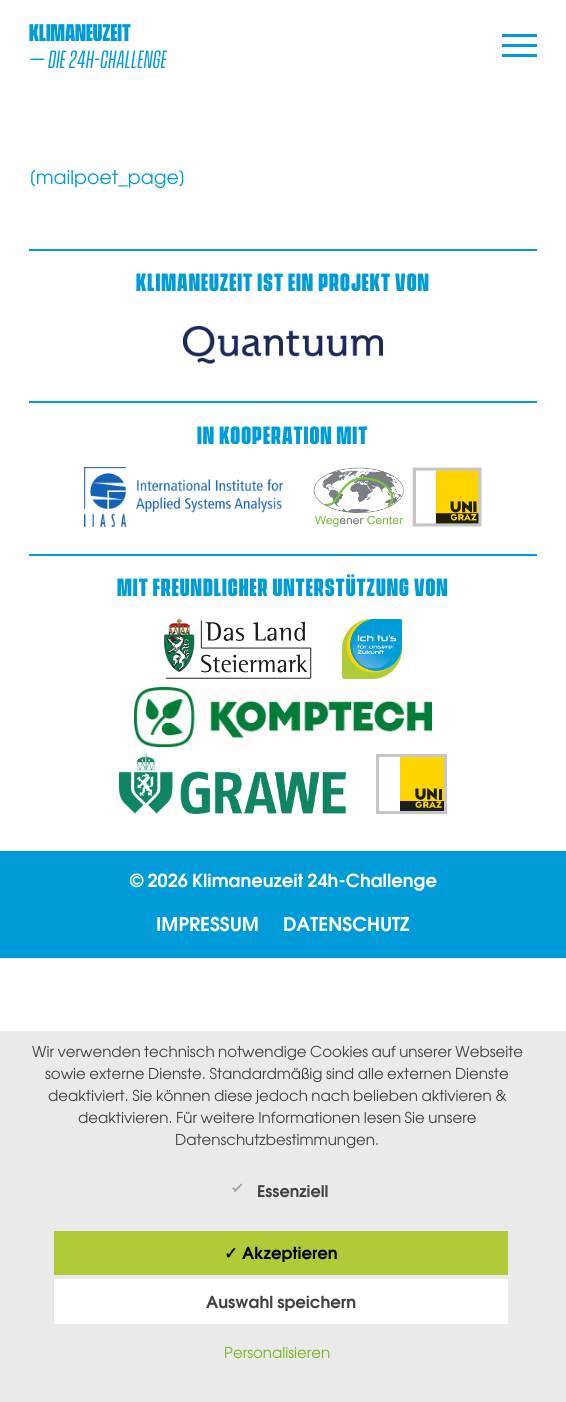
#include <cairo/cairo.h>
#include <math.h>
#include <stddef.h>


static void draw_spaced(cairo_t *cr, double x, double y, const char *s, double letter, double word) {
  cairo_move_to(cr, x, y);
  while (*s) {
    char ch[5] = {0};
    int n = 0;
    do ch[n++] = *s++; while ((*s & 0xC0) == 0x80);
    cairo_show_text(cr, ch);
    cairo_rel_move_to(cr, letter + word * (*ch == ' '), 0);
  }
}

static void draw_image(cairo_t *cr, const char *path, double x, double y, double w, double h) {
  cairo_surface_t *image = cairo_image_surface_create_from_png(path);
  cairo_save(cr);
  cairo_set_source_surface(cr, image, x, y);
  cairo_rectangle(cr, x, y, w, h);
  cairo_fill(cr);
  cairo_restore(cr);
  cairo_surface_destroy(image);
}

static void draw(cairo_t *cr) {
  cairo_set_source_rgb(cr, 1, 1, 1);
  cairo_paint(cr);
  cairo_set_source_rgb(cr, 0, 155 / 255.0, 217 / 255.0);
  cairo_rectangle(cr, 502, 34, 35, 3);
  cairo_fill(cr);
  cairo_rectangle(cr, 502, 44, 35, 3);
  cairo_fill(cr);
  cairo_rectangle(cr, 502, 54, 35, 3);
  cairo_fill(cr);
  cairo_rectangle(cr, 29, 249, 508, 2);
  cairo_fill(cr);
  cairo_rectangle(cr, 29, 401, 508, 2);
  cairo_fill(cr);
  draw_image(cr, "images/1.png", 183, 326, 200, 38);
  cairo_rectangle(cr, 29, 554, 508, 2);
  cairo_fill(cr);
  draw_image(cr, "images/2.png", 84, 467, 199, 60);
  draw_image(cr, "images/3.png", 313, 467, 169, 60);
  draw_image(cr, "images/4.png", 164, 619, 148, 60);
  draw_image(cr, "images/5.png", 342, 619, 60, 60);
  draw_image(cr, "images/6.png", 134, 687, 298, 60);
  draw_image(cr, "images/7.png", 119, 754, 227, 60);
  draw_image(cr, "images/8.png", 376, 754, 71, 60);
  cairo_rectangle(cr, 0, 851, 566, 107);
  cairo_fill(cr);
  cairo_set_source_rgb(cr, 234 / 255.0, 234 / 255.0, 234 / 255.0);
  cairo_rectangle(cr, 0, 1031, 566, 371);
  cairo_fill(cr);
  cairo_set_source_rgb(cr, 167 / 255.0, 167 / 255.0, 167 / 255.0);
  cairo_new_path(cr);
  cairo_move_to(cr, 241, 1183.5);
  cairo_line_to(cr, 242.5, 1184.5);
  cairo_line_to(cr, 235.5, 1192);
  cairo_line_to(cr, 234, 1190.5);
  cairo_close_path(cr);
  cairo_fill(cr);
  cairo_new_path(cr);
  cairo_move_to(cr, 233.5, 1187);
  cairo_line_to(cr, 237, 1190.5);
  cairo_line_to(cr, 235.5, 1192);
  cairo_line_to(cr, 232, 1188.5);
  cairo_close_path(cr);
  cairo_fill(cr);
  cairo_set_source_rgb(cr, 175 / 255.0, 203 / 255.0, 55 / 255.0);
  cairo_rectangle(cr, 54, 1231, 454, 44);
  cairo_fill(cr);
  cairo_set_source_rgb(cr, 1, 1, 1);
  cairo_rectangle(cr, 54, 1279, 454, 45);
  cairo_fill(cr);
  cairo_select_font_face(cr, "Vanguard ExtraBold", CAIRO_FONT_SLANT_NORMAL, CAIRO_FONT_WEIGHT_NORMAL);
  cairo_set_font_size(cr, 22);
  cairo_set_source_rgb(cr, 0, 155 / 255.0, 217 / 255.0);
  cairo_move_to(cr, 29, 41);
  cairo_show_text(cr, "KLIMANEUZEIT");
  cairo_select_font_face(cr, "Vanguard", CAIRO_FONT_SLANT_ITALIC, CAIRO_FONT_WEIGHT_NORMAL);
  cairo_set_font_size(cr, 22.75);
  cairo_move_to(cr, 29, 68);
  cairo_show_text(cr, "– DIE 24H-CHALLENGE");
  cairo_select_font_face(cr, "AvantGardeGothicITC", CAIRO_FONT_SLANT_NORMAL, CAIRO_FONT_WEIGHT_NORMAL);
  cairo_set_font_size(cr, 19);
  cairo_move_to(cr, 29, 184);
  cairo_show_text(cr, "[mailpoet_page]");
  cairo_select_font_face(cr, "Vanguard ExtraBold", CAIRO_FONT_SLANT_NORMAL, CAIRO_FONT_WEIGHT_NORMAL);
  cairo_set_font_size(cr, 22.75);
  draw_spaced(cr, 136, 291, "KLIMANEUZEIT IST EIN PROJEKT VON", 1, 0);
  draw_spaced(cr, 197, 444, "IN KOOPERATION MIT", 1, 0);
  draw_spaced(cr, 117, 596, "MIT FREUNDLICHER UNTERSTÜTZUNG VON", 1, 0);
  cairo_select_font_face(cr, "AvantGardeGothicITC SemiBold", CAIRO_FONT_SLANT_NORMAL, CAIRO_FONT_WEIGHT_NORMAL);
  cairo_set_font_size(cr, 18);
  cairo_set_source_rgb(cr, 1, 1, 1);
  cairo_move_to(cr, 130, 887);
  cairo_show_text(cr, "© 2026 Klimaneuzeit 24h-Challenge");
  cairo_set_font_size(cr, 19);
  cairo_move_to(cr, 156, 931);
  cairo_show_text(cr, "IMPRESSUM");
  cairo_move_to(cr, 283, 931);
  cairo_show_text(cr, "DATENSCHUTZ");
  cairo_select_font_face(cr, "AvantGardeGothicITC", CAIRO_FONT_SLANT_NORMAL, CAIRO_FONT_WEIGHT_NORMAL);
  cairo_set_font_size(cr, 15);
  cairo_set_source_rgb(cr, 66 / 255.0, 66 / 255.0, 66 / 255.0);
  cairo_move_to(cr, 32, 1057);
  cairo_show_text(cr, "Wir verwenden technisch notwendige Cookies auf unserer Webseite");
  cairo_move_to(cr, 45, 1079);
  cairo_show_text(cr, "sowie externe Dienste. Standardmäßig sind alle externen Dienste");
  cairo_move_to(cr, 48, 1101);
  cairo_show_text(cr, "deaktiviert. Sie können diese jedoch nach belieben aktivieren &");
  cairo_move_to(cr, 78, 1123);
  cairo_show_text(cr, "deaktivieren. Für weitere Informationen lesen Sie unsere");
  cairo_move_to(cr, 175, 1145);
  cairo_show_text(cr, "Datenschutzbestimmungen.");
  cairo_select_font_face(cr, "AvantGardeGothicITC SemiBold", CAIRO_FONT_SLANT_NORMAL, CAIRO_FONT_WEIGHT_NORMAL);
  cairo_set_font_size(cr, 16);
  cairo_move_to(cr, 257, 1197);
  cairo_show_text(cr, "Essenziell");
  cairo_select_font_face(cr, "DejaVu Sans", CAIRO_FONT_SLANT_NORMAL, CAIRO_FONT_WEIGHT_BOLD);
  cairo_set_font_size(cr, 16.5);
  cairo_set_source_rgb(cr, 0, 0, 0);
  cairo_move_to(cr, 224, 1259);
  cairo_show_text(cr, "✓");
  cairo_select_font_face(cr, "AvantGardeGothicITC SemiBold", CAIRO_FONT_SLANT_NORMAL, CAIRO_FONT_WEIGHT_NORMAL);
  cairo_move_to(cr, 242, 1259);
  cairo_show_text(cr, "Akzeptieren");
  cairo_set_source_rgb(cr, 66 / 255.0, 66 / 255.0, 66 / 255.0);
  cairo_move_to(cr, 206, 1308);
  cairo_show_text(cr, "Auswahl speichern");
  cairo_select_font_face(cr, "AvantGardeGothicITC", CAIRO_FONT_SLANT_NORMAL, CAIRO_FONT_WEIGHT_NORMAL);
  cairo_set_font_size(cr, 15);
  cairo_set_source_rgb(cr, 121 / 255.0, 181 / 255.0, 31 / 255.0);
  cairo_move_to(cr, 224, 1358);
  cairo_show_text(cr, "Personalisieren");
}

int main(void) {
  cairo_surface_t *surface = cairo_image_surface_create(CAIRO_FORMAT_RGB24, 566, 1402);
  cairo_t *cr = cairo_create(surface);
  cairo_font_options_t *options = cairo_font_options_create();
  cairo_font_options_set_hint_metrics(options, CAIRO_HINT_METRICS_OFF);
  cairo_font_options_set_hint_style(options, CAIRO_HINT_STYLE_NONE);
  cairo_set_font_options(cr, options);
  cairo_set_miter_limit(cr, 4);
  draw(cr);
  cairo_surface_write_to_png(surface, "out.png");
  cairo_font_options_destroy(options);
  cairo_destroy(cr);
  cairo_surface_destroy(surface);
  return 0;
}
